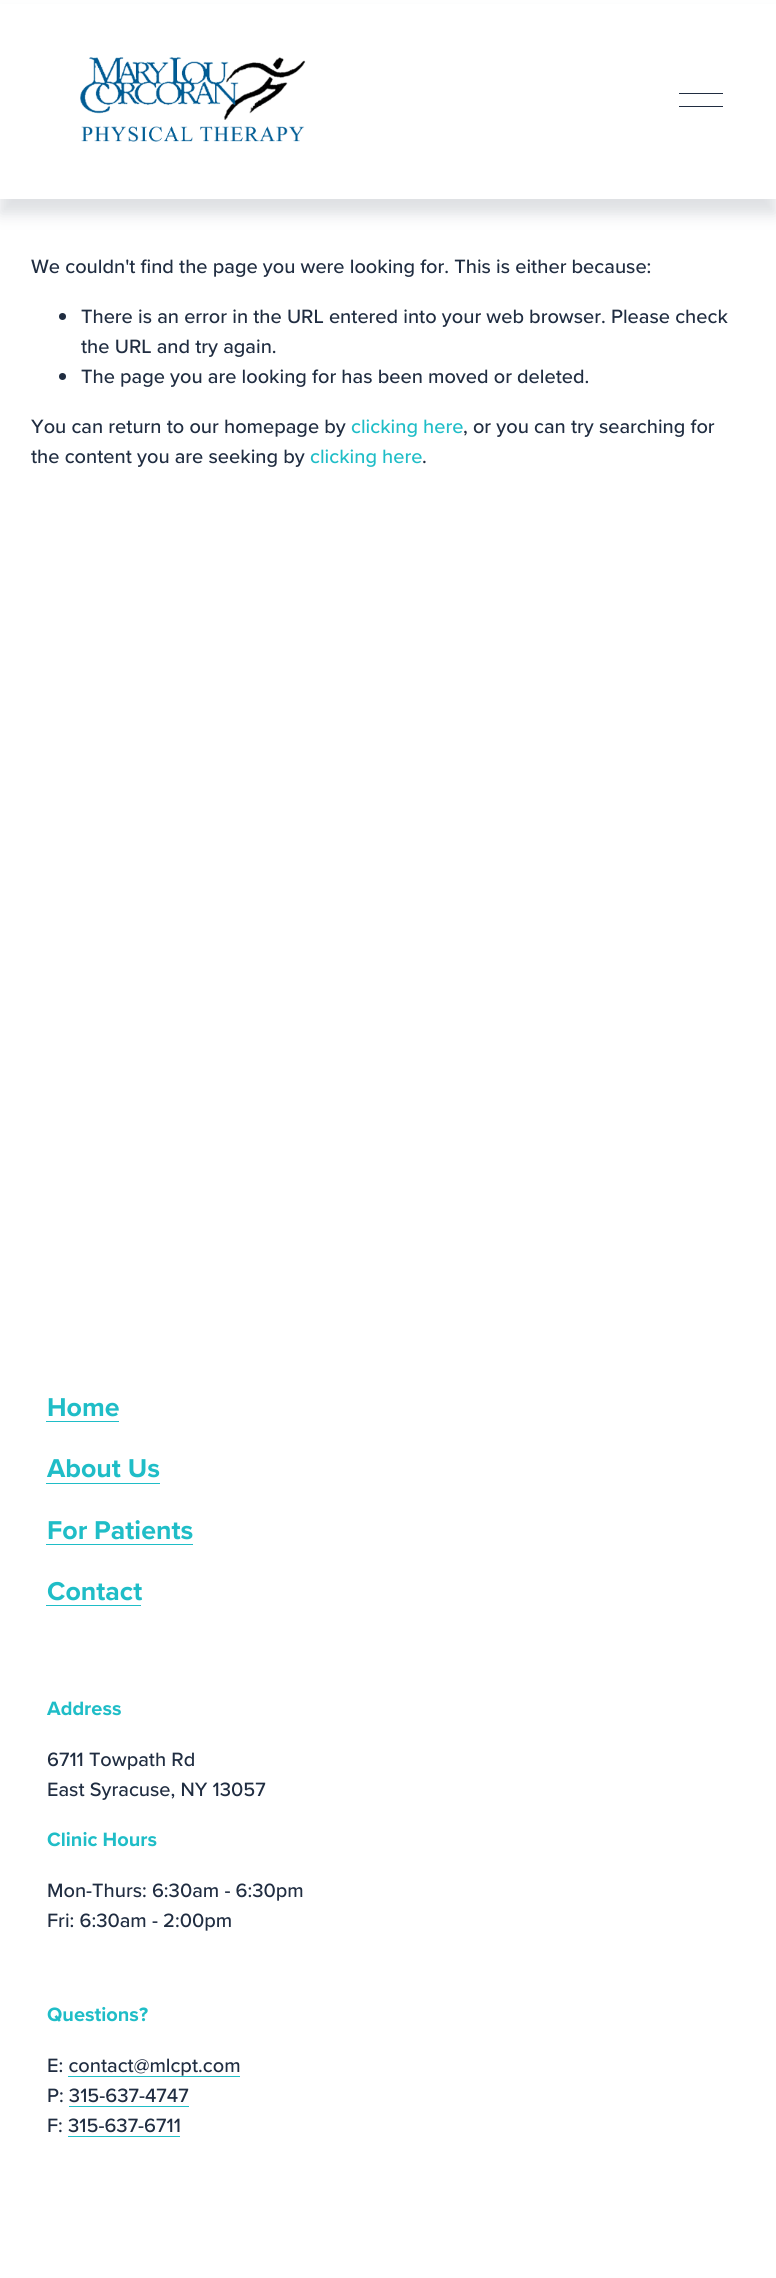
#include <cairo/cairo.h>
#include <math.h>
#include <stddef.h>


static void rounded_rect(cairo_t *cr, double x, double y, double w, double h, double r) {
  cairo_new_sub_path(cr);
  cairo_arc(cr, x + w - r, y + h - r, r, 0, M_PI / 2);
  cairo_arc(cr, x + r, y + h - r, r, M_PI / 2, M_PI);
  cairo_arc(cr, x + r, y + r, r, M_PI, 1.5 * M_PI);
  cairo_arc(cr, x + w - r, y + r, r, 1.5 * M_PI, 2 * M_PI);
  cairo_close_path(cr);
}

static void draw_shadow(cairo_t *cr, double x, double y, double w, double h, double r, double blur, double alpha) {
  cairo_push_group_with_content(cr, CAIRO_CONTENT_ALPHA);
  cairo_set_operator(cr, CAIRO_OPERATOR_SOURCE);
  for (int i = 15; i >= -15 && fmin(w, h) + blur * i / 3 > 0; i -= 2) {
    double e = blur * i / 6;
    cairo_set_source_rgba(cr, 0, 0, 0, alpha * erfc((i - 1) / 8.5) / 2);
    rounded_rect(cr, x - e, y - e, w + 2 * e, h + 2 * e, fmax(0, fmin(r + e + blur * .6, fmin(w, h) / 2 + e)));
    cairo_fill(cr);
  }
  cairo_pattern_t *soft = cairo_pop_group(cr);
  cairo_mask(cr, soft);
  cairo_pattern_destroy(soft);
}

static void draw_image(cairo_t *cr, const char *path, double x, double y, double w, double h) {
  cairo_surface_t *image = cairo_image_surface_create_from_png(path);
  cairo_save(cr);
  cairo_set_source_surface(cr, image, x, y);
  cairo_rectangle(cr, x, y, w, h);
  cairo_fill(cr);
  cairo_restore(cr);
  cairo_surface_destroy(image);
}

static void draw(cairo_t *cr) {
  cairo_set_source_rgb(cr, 1, 1, 1);
  cairo_paint(cr);
  cairo_set_source_rgb(cr, 222 / 255.0, 224 / 255.0, 227 / 255.0);
  draw_shadow(cr, 0, 15, 776, 199, 0, 7.5, 1);
  cairo_set_source_rgb(cr, 1, 1, 1);
  cairo_rectangle(cr, 0, 4, 776, 195);
  cairo_fill(cr);
  draw_image(cr, "images/1.png", 80, 57, 226, 85);
  cairo_set_source_rgb(cr, 32 / 255.0, 45 / 255.0, 65 / 255.0);
  cairo_rectangle(cr, 679, 93, 44, 1);
  cairo_fill(cr);
  cairo_rectangle(cr, 679, 106, 44, 1);
  cairo_fill(cr);
  cairo_arc(cr, 62.5, 316.5, 3.5, 0, 2 * M_PI);
  cairo_fill(cr);
  cairo_arc(cr, 62.5, 376.5, 3.5, 0, 2 * M_PI);
  cairo_fill(cr);
  cairo_set_source_rgb(cr, 31 / 255.0, 189 / 255.0, 199 / 255.0);
  cairo_rectangle(cr, 46, 1421, 73, 1);
  cairo_fill(cr);
  cairo_rectangle(cr, 46, 1483, 114, 1);
  cairo_fill(cr);
  cairo_rectangle(cr, 46, 1544, 147, 1);
  cairo_fill(cr);
  cairo_rectangle(cr, 46, 1605, 95, 1);
  cairo_fill(cr);
  cairo_rectangle(cr, 68, 2076, 172, 1);
  cairo_fill(cr);
  cairo_rectangle(cr, 69, 2106, 120, 1);
  cairo_fill(cr);
  cairo_rectangle(cr, 68, 2136, 112, 1);
  cairo_fill(cr);
  cairo_select_font_face(cr, "Proxima Nova Medium", CAIRO_FONT_SLANT_NORMAL, CAIRO_FONT_WEIGHT_NORMAL);
  cairo_set_font_size(cr, 20);
  cairo_set_source_rgb(cr, 32 / 255.0, 45 / 255.0, 65 / 255.0);
  cairo_move_to(cr, 31, 273);
  cairo_show_text(cr, "We couldn't find the page you were looking for. This is either because:");
  cairo_move_to(cr, 81, 323);
  cairo_show_text(cr, "There is an error in the URL entered into your web browser. Please check");
  cairo_move_to(cr, 81, 353);
  cairo_show_text(cr, "the URL and try again.");
  cairo_move_to(cr, 81, 383);
  cairo_show_text(cr, "The page you are looking for has been moved or deleted.");
  cairo_move_to(cr, 31, 433);
  cairo_show_text(cr, "You can return to our homepage by");
  cairo_set_source_rgb(cr, 31 / 255.0, 189 / 255.0, 199 / 255.0);
  cairo_move_to(cr, 351, 433);
  cairo_show_text(cr, "clicking here");
  cairo_set_source_rgb(cr, 32 / 255.0, 45 / 255.0, 65 / 255.0);
  cairo_move_to(cr, 463, 433);
  cairo_show_text(cr, ", or you can try searching for");
  cairo_move_to(cr, 31, 463);
  cairo_show_text(cr, "the content you are seeking by");
  cairo_set_source_rgb(cr, 31 / 255.0, 189 / 255.0, 199 / 255.0);
  cairo_move_to(cr, 310, 463);
  cairo_show_text(cr, "clicking here");
  cairo_set_source_rgb(cr, 32 / 255.0, 45 / 255.0, 65 / 255.0);
  cairo_move_to(cr, 422, 463);
  cairo_show_text(cr, ".");
  cairo_select_font_face(cr, "Proxima Nova", CAIRO_FONT_SLANT_NORMAL, CAIRO_FONT_WEIGHT_BOLD);
  cairo_set_font_size(cr, 26.75);
  cairo_set_source_rgb(cr, 31 / 255.0, 189 / 255.0, 199 / 255.0);
  cairo_move_to(cr, 47, 1416);
  cairo_show_text(cr, "Home");
  cairo_move_to(cr, 47, 1477);
  cairo_show_text(cr, "About Us");
  cairo_move_to(cr, 47, 1539);
  cairo_show_text(cr, "For Patients");
  cairo_move_to(cr, 47, 1600);
  cairo_show_text(cr, "Contact");
  cairo_set_font_size(cr, 20);
  cairo_move_to(cr, 47, 1715);
  cairo_show_text(cr, "Address");
  cairo_select_font_face(cr, "Proxima Nova Medium", CAIRO_FONT_SLANT_NORMAL, CAIRO_FONT_WEIGHT_NORMAL);
  cairo_set_source_rgb(cr, 32 / 255.0, 45 / 255.0, 65 / 255.0);
  cairo_move_to(cr, 47, 1766);
  cairo_show_text(cr, "6711 Towpath Rd");
  cairo_move_to(cr, 47, 1796);
  cairo_show_text(cr, "East Syracuse, NY 13057");
  cairo_select_font_face(cr, "Proxima Nova", CAIRO_FONT_SLANT_NORMAL, CAIRO_FONT_WEIGHT_BOLD);
  cairo_set_source_rgb(cr, 31 / 255.0, 189 / 255.0, 199 / 255.0);
  cairo_move_to(cr, 47, 1846);
  cairo_show_text(cr, "Clinic Hours");
  cairo_select_font_face(cr, "Proxima Nova Medium", CAIRO_FONT_SLANT_NORMAL, CAIRO_FONT_WEIGHT_NORMAL);
  cairo_set_source_rgb(cr, 32 / 255.0, 45 / 255.0, 65 / 255.0);
  cairo_move_to(cr, 47, 1897);
  cairo_show_text(cr, "Mon-Thurs: 6:30am - 6:30pm");
  cairo_move_to(cr, 47, 1927);
  cairo_show_text(cr, "Fri: 6:30am - 2:00pm");
  cairo_select_font_face(cr, "Proxima Nova", CAIRO_FONT_SLANT_NORMAL, CAIRO_FONT_WEIGHT_BOLD);
  cairo_set_source_rgb(cr, 31 / 255.0, 189 / 255.0, 199 / 255.0);
  cairo_move_to(cr, 47, 2021);
  cairo_show_text(cr, "Questions?");
  cairo_select_font_face(cr, "Proxima Nova Medium", CAIRO_FONT_SLANT_NORMAL, CAIRO_FONT_WEIGHT_NORMAL);
  cairo_set_source_rgb(cr, 32 / 255.0, 45 / 255.0, 65 / 255.0);
  cairo_move_to(cr, 47, 2072);
  cairo_show_text(cr, "E: contact@mlcpt.com");
  cairo_move_to(cr, 47, 2102);
  cairo_show_text(cr, "P: 315-637-4747");
  cairo_move_to(cr, 47, 2132);
  cairo_show_text(cr, "F: 315-637-6711");
}

int main(void) {
  cairo_surface_t *surface = cairo_image_surface_create(CAIRO_FORMAT_RGB24, 776, 2278);
  cairo_t *cr = cairo_create(surface);
  cairo_font_options_t *options = cairo_font_options_create();
  cairo_font_options_set_hint_metrics(options, CAIRO_HINT_METRICS_OFF);
  cairo_font_options_set_hint_style(options, CAIRO_HINT_STYLE_NONE);
  cairo_set_font_options(cr, options);
  cairo_set_miter_limit(cr, 4);
  draw(cr);
  cairo_surface_write_to_png(surface, "out.png");
  cairo_font_options_destroy(options);
  cairo_destroy(cr);
  cairo_surface_destroy(surface);
  return 0;
}
